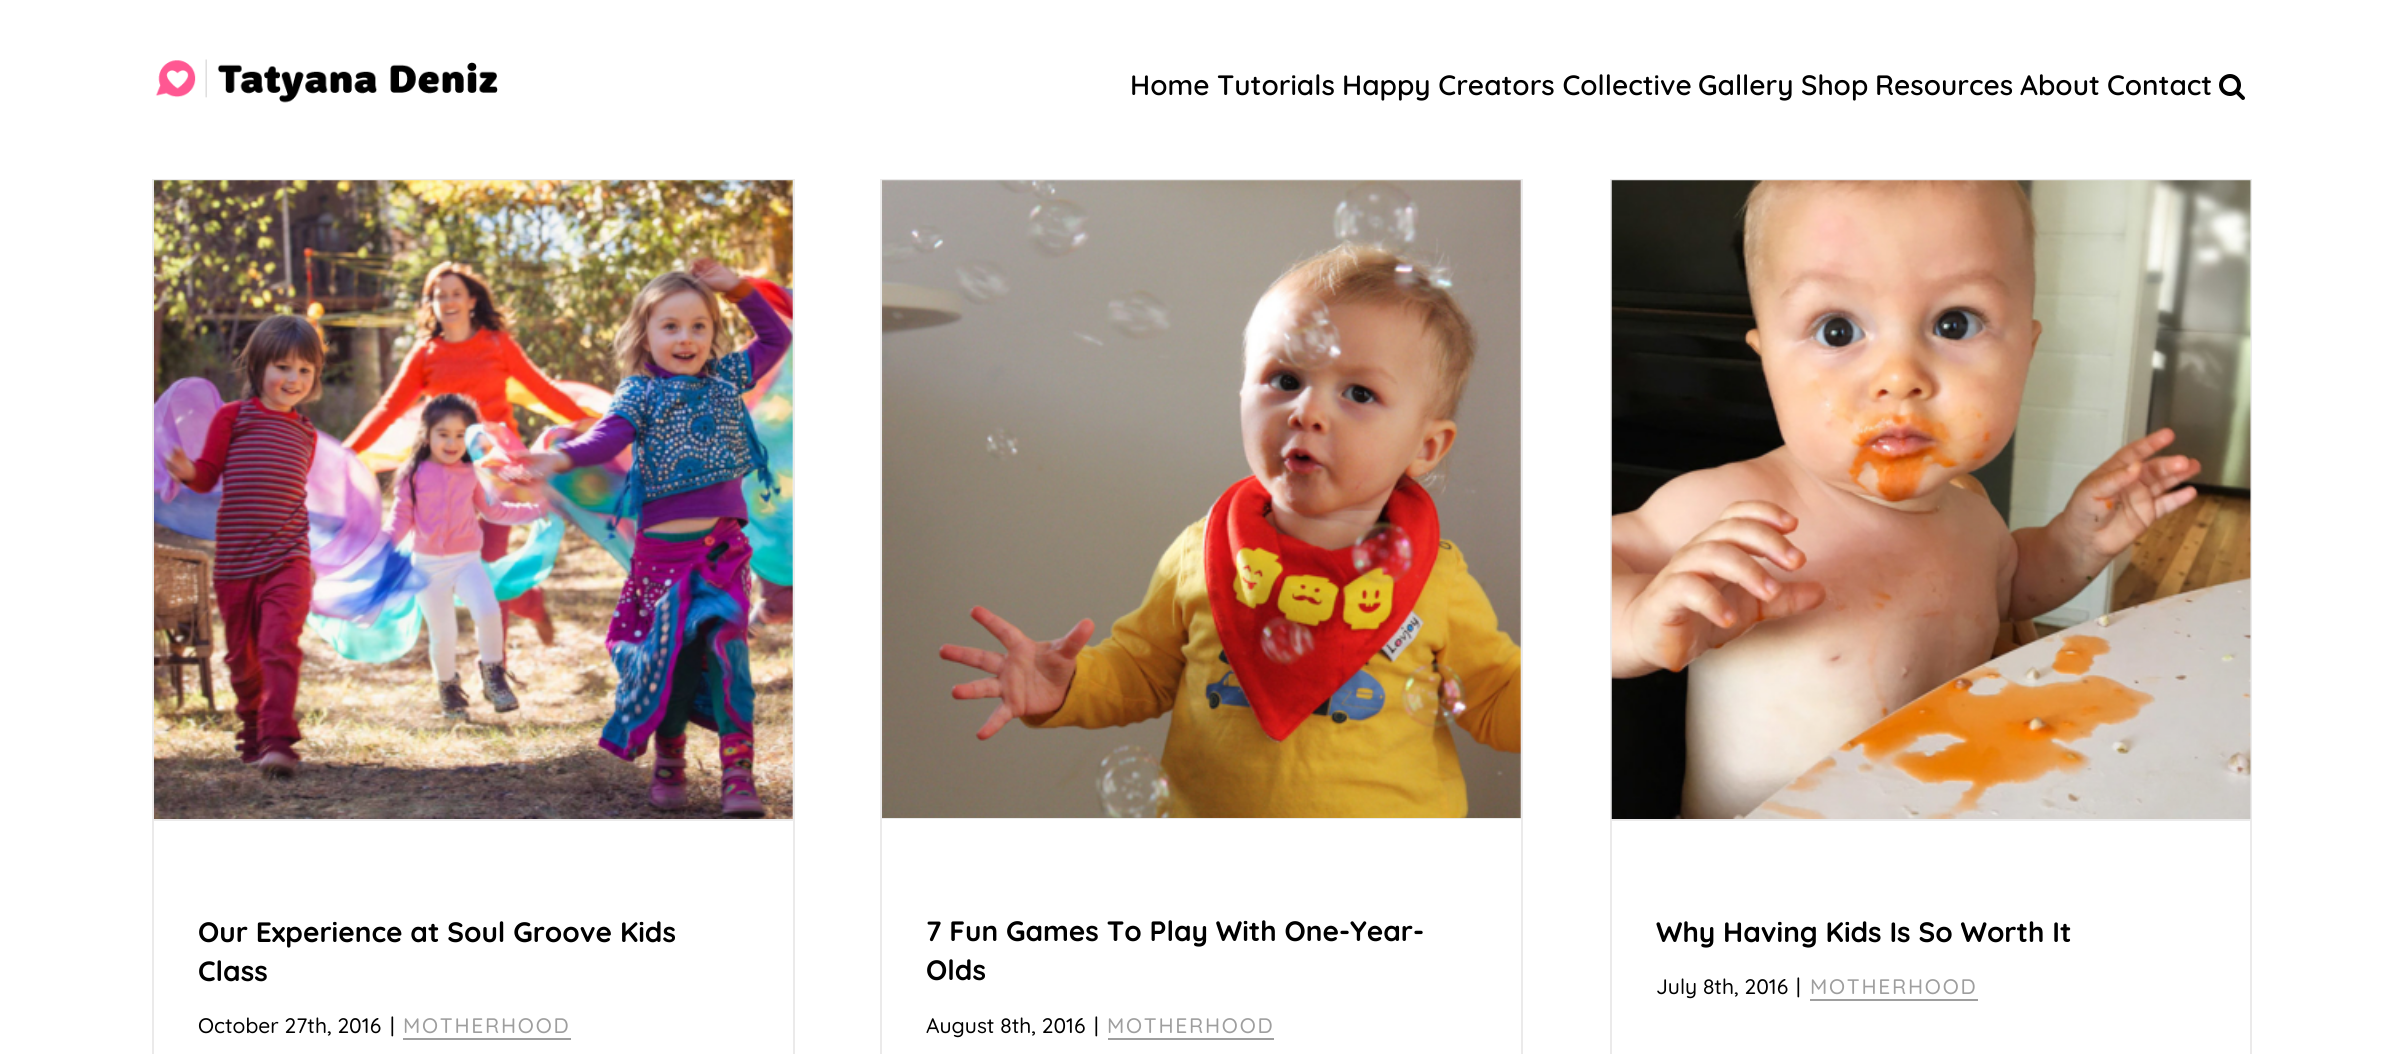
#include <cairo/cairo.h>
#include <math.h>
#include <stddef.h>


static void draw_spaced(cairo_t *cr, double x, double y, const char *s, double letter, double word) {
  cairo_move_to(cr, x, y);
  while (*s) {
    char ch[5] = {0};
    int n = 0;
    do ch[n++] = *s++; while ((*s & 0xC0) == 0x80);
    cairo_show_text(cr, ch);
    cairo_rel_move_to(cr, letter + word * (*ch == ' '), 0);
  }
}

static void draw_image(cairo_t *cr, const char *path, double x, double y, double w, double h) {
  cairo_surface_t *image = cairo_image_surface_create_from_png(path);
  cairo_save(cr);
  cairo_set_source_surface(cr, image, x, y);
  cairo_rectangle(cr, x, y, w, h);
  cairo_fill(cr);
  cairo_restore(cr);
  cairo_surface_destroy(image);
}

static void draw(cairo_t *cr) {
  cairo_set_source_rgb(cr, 1, 1, 1);
  cairo_paint(cr);
  draw_image(cr, "images/1.png", 155, 59, 343, 44);
  draw_image(cr, "images/2.png", 2219, 74, 26, 26);
  cairo_rectangle(cr, 153, 180, 641, 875);
  cairo_set_source_rgb(cr, 235 / 255.0, 234 / 255.0, 234 / 255.0);
  cairo_stroke(cr);
  cairo_rectangle(cr, 154, 819, 639, 2);
  cairo_fill(cr);
  draw_image(cr, "images/3.png", 154, 180, 639, 639);
  cairo_set_source_rgb(cr, 158 / 255.0, 158 / 255.0, 158 / 255.0);
  cairo_rectangle(cr, 403, 1038, 168, 2);
  cairo_fill(cr);
  cairo_rectangle(cr, 881, 180, 641, 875);
  cairo_set_source_rgb(cr, 235 / 255.0, 234 / 255.0, 234 / 255.0);
  cairo_stroke(cr);
  cairo_rectangle(cr, 882, 817, 639, 2);
  cairo_fill(cr);
  draw_image(cr, "images/4.png", 882, 180, 639, 638);
  cairo_set_source_rgb(cr, 158 / 255.0, 158 / 255.0, 158 / 255.0);
  cairo_rectangle(cr, 1108, 1038, 166, 2);
  cairo_fill(cr);
  cairo_rectangle(cr, 1611, 180, 640, 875);
  cairo_set_source_rgb(cr, 235 / 255.0, 234 / 255.0, 234 / 255.0);
  cairo_stroke(cr);
  cairo_rectangle(cr, 1612, 819, 639, 2);
  cairo_fill(cr);
  draw_image(cr, "images/5.png", 1611, 180, 640, 639);
  cairo_set_source_rgb(cr, 158 / 255.0, 158 / 255.0, 158 / 255.0);
  cairo_rectangle(cr, 1810, 999, 168, 2);
  cairo_fill(cr);
  cairo_select_font_face(cr, "Quicksand SemiBold", CAIRO_FONT_SLANT_NORMAL, CAIRO_FONT_WEIGHT_NORMAL);
  cairo_set_font_size(cr, 28);
  cairo_set_source_rgb(cr, 0, 0, 0);
  cairo_move_to(cr, 1130, 95);
  cairo_show_text(cr, "Home");
  cairo_move_to(cr, 1217, 95);
  cairo_show_text(cr, "Tutorials");
  cairo_move_to(cr, 1342, 95);
  cairo_show_text(cr, "Happy Creators Collective");
  cairo_move_to(cr, 1698, 95);
  cairo_show_text(cr, "Gallery");
  cairo_move_to(cr, 1801, 95);
  cairo_show_text(cr, "Shop");
  cairo_move_to(cr, 1875, 95);
  cairo_show_text(cr, "Resources");
  cairo_move_to(cr, 2020, 95);
  cairo_show_text(cr, "About");
  cairo_move_to(cr, 2107, 95);
  cairo_show_text(cr, "Contact");
  cairo_select_font_face(cr, "Quicksand", CAIRO_FONT_SLANT_NORMAL, CAIRO_FONT_WEIGHT_BOLD);
  cairo_move_to(cr, 198, 942);
  cairo_show_text(cr, "Our Experience at Soul Groove Kids");
  cairo_move_to(cr, 198, 981);
  cairo_show_text(cr, "Class");
  cairo_select_font_face(cr, "Quicksand Medium", CAIRO_FONT_SLANT_NORMAL, CAIRO_FONT_WEIGHT_NORMAL);
  cairo_set_font_size(cr, 21);
  cairo_move_to(cr, 198, 1033);
  cairo_show_text(cr, "October 27th, 2016");
  cairo_move_to(cr, 390, 1033);
  cairo_show_text(cr, "|");
  cairo_set_source_rgb(cr, 158 / 255.0, 158 / 255.0, 158 / 255.0);
  draw_spaced(cr, 403, 1033, "MOTHERHOOD", 1.75, 0);
  cairo_select_font_face(cr, "Quicksand", CAIRO_FONT_SLANT_NORMAL, CAIRO_FONT_WEIGHT_BOLD);
  cairo_set_font_size(cr, 28);
  cairo_set_source_rgb(cr, 0, 0, 0);
  cairo_move_to(cr, 926, 941);
  cairo_show_text(cr, "7 Fun Games To Play With One-Year-");
  cairo_move_to(cr, 926, 980);
  cairo_show_text(cr, "Olds");
  cairo_select_font_face(cr, "Quicksand Medium", CAIRO_FONT_SLANT_NORMAL, CAIRO_FONT_WEIGHT_NORMAL);
  cairo_set_font_size(cr, 21);
  cairo_move_to(cr, 926, 1033);
  cairo_show_text(cr, "August 8th, 2016");
  cairo_move_to(cr, 1094, 1033);
  cairo_show_text(cr, "|");
  cairo_set_source_rgb(cr, 158 / 255.0, 158 / 255.0, 158 / 255.0);
  draw_spaced(cr, 1107, 1033, "MOTHERHOOD", 1.75, 0);
  cairo_select_font_face(cr, "Quicksand", CAIRO_FONT_SLANT_NORMAL, CAIRO_FONT_WEIGHT_BOLD);
  cairo_set_font_size(cr, 28);
  cairo_set_source_rgb(cr, 0, 0, 0);
  cairo_move_to(cr, 1656, 942);
  cairo_show_text(cr, "Why Having Kids Is So Worth It");
  cairo_select_font_face(cr, "Quicksand Medium", CAIRO_FONT_SLANT_NORMAL, CAIRO_FONT_WEIGHT_NORMAL);
  cairo_set_font_size(cr, 21);
  cairo_move_to(cr, 1656, 994);
  cairo_show_text(cr, "July 8th, 2016");
  cairo_move_to(cr, 1796, 994);
  cairo_show_text(cr, "|");
  cairo_set_source_rgb(cr, 158 / 255.0, 158 / 255.0, 158 / 255.0);
  draw_spaced(cr, 1810, 994, "MOTHERHOOD", 1.75, 0);
}

int main(void) {
  cairo_surface_t *surface = cairo_image_surface_create(CAIRO_FORMAT_RGB24, 2403, 1054);
  cairo_t *cr = cairo_create(surface);
  cairo_font_options_t *options = cairo_font_options_create();
  cairo_font_options_set_hint_metrics(options, CAIRO_HINT_METRICS_OFF);
  cairo_font_options_set_hint_style(options, CAIRO_HINT_STYLE_NONE);
  cairo_set_font_options(cr, options);
  cairo_set_miter_limit(cr, 4);
  draw(cr);
  cairo_surface_write_to_png(surface, "out.png");
  cairo_font_options_destroy(options);
  cairo_destroy(cr);
  cairo_surface_destroy(surface);
  return 0;
}
